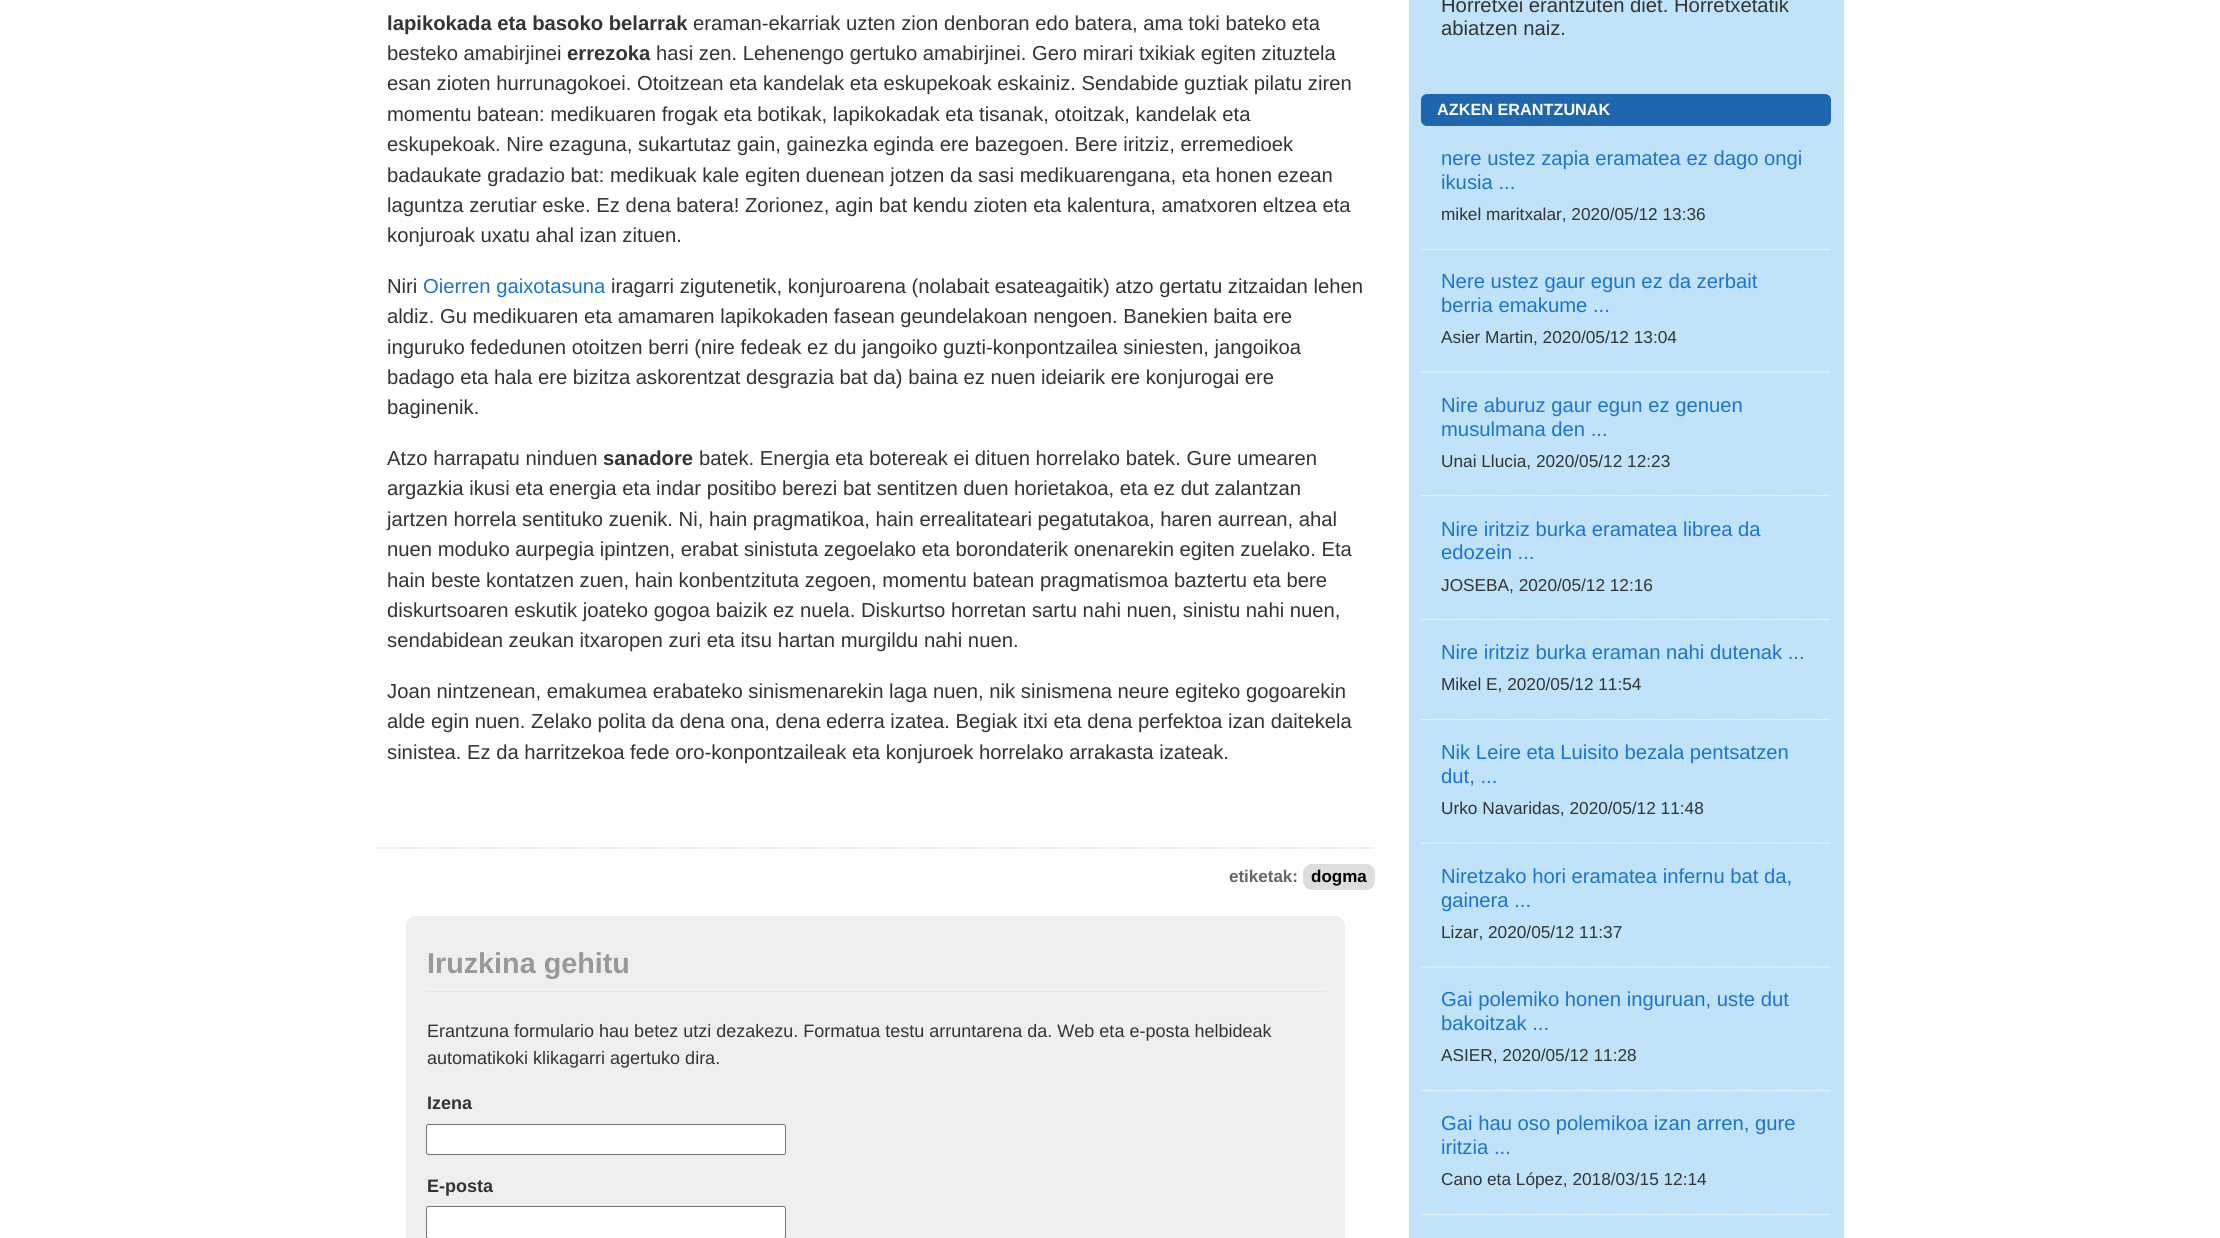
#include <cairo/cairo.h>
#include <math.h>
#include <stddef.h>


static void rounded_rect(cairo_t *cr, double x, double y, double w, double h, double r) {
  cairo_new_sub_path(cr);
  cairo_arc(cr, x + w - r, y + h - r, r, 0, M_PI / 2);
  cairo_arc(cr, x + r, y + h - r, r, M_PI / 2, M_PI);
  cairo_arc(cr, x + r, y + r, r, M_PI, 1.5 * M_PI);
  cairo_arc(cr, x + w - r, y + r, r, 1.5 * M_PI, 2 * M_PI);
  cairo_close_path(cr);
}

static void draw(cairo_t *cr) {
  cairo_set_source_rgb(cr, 1, 1, 1);
  cairo_paint(cr);
  cairo_new_path(cr);
  cairo_move_to(cr, 377.5, 848);
  cairo_line_to(cr, 1375, 848);
  cairo_set_source_rgb(cr, 204 / 255.0, 204 / 255.0, 204 / 255.0);
  cairo_set_line_width(cr, 1.2);
  cairo_set_dash(cr, (double[]){1.25, 1.25}, 2, 0);
  cairo_stroke(cr);
  cairo_set_source_rgb(cr, 221 / 255.0, 221 / 255.0, 221 / 255.0);
  rounded_rect(cr, 1303, 864, 72, 26, 9);
  cairo_fill(cr);
  cairo_set_source_rgb(cr, 239 / 255.0, 239 / 255.0, 239 / 255.0);
  rounded_rect(cr, 406, 916, 939, 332, 10);
  cairo_fill(cr);
  cairo_set_source_rgb(cr, 229 / 255.0, 229 / 255.0, 229 / 255.0);
  cairo_rectangle(cr, 426, 991, 899, 1);
  cairo_fill(cr);
  cairo_set_source_rgb(cr, 1, 1, 1);
  rounded_rect(cr, 426.5, 1124.5, 359, 30, 2);
  cairo_fill_preserve(cr);
  cairo_set_source_rgb(cr, 118 / 255.0, 118 / 255.0, 118 / 255.0);
  cairo_set_line_width(cr, 1);
  cairo_set_dash(cr, NULL, 0, 0);
  cairo_stroke(cr);
  cairo_set_source_rgb(cr, 1, 1, 1);
  rounded_rect(cr, 426.5, 1206.5, 359, 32, 2);
  cairo_fill_preserve(cr);
  cairo_set_source_rgb(cr, 118 / 255.0, 118 / 255.0, 118 / 255.0);
  cairo_stroke(cr);
  cairo_set_source_rgb(cr, 192 / 255.0, 227 / 255.0, 249 / 255.0);
  cairo_rectangle(cr, 1409, 0, 435, 1238);
  cairo_fill(cr);
  cairo_set_source_rgb(cr, 30 / 255.0, 102 / 255.0, 173 / 255.0);
  rounded_rect(cr, 1421, 94, 410, 32, 6);
  cairo_fill(cr);
  cairo_new_path(cr);
  cairo_move_to(cr, 1421, 249.5);
  cairo_line_to(cr, 1831, 249.5);
  cairo_set_source_rgb(cr, 1, 1, 1);
  cairo_set_line_width(cr, 1.2);
  cairo_set_dash(cr, (double[]){1.25, 1.25}, 2, 0);
  cairo_stroke(cr);
  cairo_new_path(cr);
  cairo_move_to(cr, 1421, 372);
  cairo_line_to(cr, 1831, 372);
  cairo_stroke(cr);
  cairo_new_path(cr);
  cairo_move_to(cr, 1421, 495.5);
  cairo_line_to(cr, 1831, 495.5);
  cairo_stroke(cr);
  cairo_new_path(cr);
  cairo_move_to(cr, 1421, 619.5);
  cairo_line_to(cr, 1831, 619.5);
  cairo_stroke(cr);
  cairo_new_path(cr);
  cairo_move_to(cr, 1421, 719.5);
  cairo_line_to(cr, 1831, 719.5);
  cairo_stroke(cr);
  cairo_new_path(cr);
  cairo_move_to(cr, 1421, 843);
  cairo_line_to(cr, 1831, 843);
  cairo_stroke(cr);
  cairo_new_path(cr);
  cairo_move_to(cr, 1421, 967);
  cairo_line_to(cr, 1831, 967);
  cairo_stroke(cr);
  cairo_new_path(cr);
  cairo_move_to(cr, 1421, 1090.5);
  cairo_line_to(cr, 1831, 1090.5);
  cairo_stroke(cr);
  cairo_new_path(cr);
  cairo_move_to(cr, 1421, 1214.5);
  cairo_line_to(cr, 1831, 1214.5);
  cairo_stroke(cr);
  cairo_select_font_face(cr, "Liberation Sans", CAIRO_FONT_SLANT_NORMAL, CAIRO_FONT_WEIGHT_BOLD);
  cairo_set_font_size(cr, 20.25);
  cairo_set_source_rgb(cr, 51 / 255.0, 51 / 255.0, 51 / 255.0);
  cairo_move_to(cr, 387, 30);
  cairo_show_text(cr, "lapikokada eta basoko belarrak");
  cairo_select_font_face(cr, "Liberation Sans", CAIRO_FONT_SLANT_NORMAL, CAIRO_FONT_WEIGHT_NORMAL);
  cairo_move_to(cr, 693, 30);
  cairo_show_text(cr, "eraman-ekarriak uzten zion denboran edo batera, ama toki bateko eta");
  cairo_move_to(cr, 387, 60);
  cairo_show_text(cr, "besteko amabirjinei");
  cairo_select_font_face(cr, "Liberation Sans", CAIRO_FONT_SLANT_NORMAL, CAIRO_FONT_WEIGHT_BOLD);
  cairo_move_to(cr, 567, 60);
  cairo_show_text(cr, "errezoka");
  cairo_select_font_face(cr, "Liberation Sans", CAIRO_FONT_SLANT_NORMAL, CAIRO_FONT_WEIGHT_NORMAL);
  cairo_move_to(cr, 656, 60);
  cairo_show_text(cr, "hasi zen. Lehenengo gertuko amabirjinei. Gero mirari txikiak egiten zituztela");
  cairo_move_to(cr, 387, 90);
  cairo_show_text(cr, "esan zioten hurrunagokoei. Otoitzean eta kandelak eta eskupekoak eskainiz. Sendabide guztiak pilatu ziren");
  cairo_move_to(cr, 387, 121);
  cairo_show_text(cr, "momentu batean: medikuaren frogak eta botikak, lapikokadak eta tisanak, otoitzak, kandelak eta");
  cairo_move_to(cr, 387, 151);
  cairo_show_text(cr, "eskupekoak. Nire ezaguna, sukartutaz gain, gainezka eginda ere bazegoen. Bere iritziz, erremedioek");
  cairo_move_to(cr, 387, 182);
  cairo_show_text(cr, "badaukate gradazio bat: medikuak kale egiten duenean jotzen da sasi medikuarengana, eta honen ezean");
  cairo_move_to(cr, 387, 212);
  cairo_show_text(cr, "laguntza zerutiar eske. Ez dena batera! Zorionez, agin bat kendu zioten eta kalentura, amatxoren eltzea eta");
  cairo_move_to(cr, 387, 242);
  cairo_show_text(cr, "konjuroak uxatu ahal izan zituen.");
  cairo_move_to(cr, 387, 293);
  cairo_show_text(cr, "Niri");
  cairo_set_source_rgb(cr, 28 / 255.0, 115 / 255.0, 207 / 255.0);
  cairo_move_to(cr, 423, 293);
  cairo_show_text(cr, "Oierren gaixotasuna");
  cairo_set_source_rgb(cr, 51 / 255.0, 51 / 255.0, 51 / 255.0);
  cairo_move_to(cr, 611, 293);
  cairo_show_text(cr, "iragarri zigutenetik, konjuroarena (nolabait esateagaitik) atzo gertatu zitzaidan lehen");
  cairo_move_to(cr, 387, 323);
  cairo_show_text(cr, "aldiz. Gu medikuaren eta amamaren lapikokaden fasean geundelakoan nengoen. Banekien baita ere");
  cairo_move_to(cr, 387, 354);
  cairo_show_text(cr, "inguruko fededunen otoitzen berri (nire fedeak ez du jangoiko guzti-konpontzailea siniesten, jangoikoa");
  cairo_move_to(cr, 387, 384);
  cairo_show_text(cr, "badago eta hala ere bizitza askorentzat desgrazia bat da) baina ez nuen ideiarik ere konjurogai ere");
  cairo_move_to(cr, 387, 414);
  cairo_show_text(cr, "baginenik.");
  cairo_move_to(cr, 387, 465);
  cairo_show_text(cr, "Atzo harrapatu ninduen");
  cairo_select_font_face(cr, "Liberation Sans", CAIRO_FONT_SLANT_NORMAL, CAIRO_FONT_WEIGHT_BOLD);
  cairo_move_to(cr, 603, 465);
  cairo_show_text(cr, "sanadore");
  cairo_select_font_face(cr, "Liberation Sans", CAIRO_FONT_SLANT_NORMAL, CAIRO_FONT_WEIGHT_NORMAL);
  cairo_move_to(cr, 699, 465);
  cairo_show_text(cr, "batek. Energia eta botereak ei dituen horrelako batek. Gure umearen");
  cairo_move_to(cr, 387, 495);
  cairo_show_text(cr, "argazkia ikusi eta energia eta indar positibo berezi bat sentitzen duen horietakoa, eta ez dut zalantzan");
  cairo_move_to(cr, 387, 526);
  cairo_show_text(cr, "jartzen horrela sentituko zuenik. Ni, hain pragmatikoa, hain errealitateari pegatutakoa, haren aurrean, ahal");
  cairo_move_to(cr, 387, 556);
  cairo_show_text(cr, "nuen moduko aurpegia ipintzen, erabat sinistuta zegoelako eta borondaterik onenarekin egiten zuelako. Eta");
  cairo_move_to(cr, 387, 587);
  cairo_show_text(cr, "hain beste kontatzen zuen, hain konbentzituta zegoen, momentu batean pragmatismoa baztertu eta bere");
  cairo_move_to(cr, 387, 617);
  cairo_show_text(cr, "diskurtsoaren eskutik joateko gogoa baizik ez nuela. Diskurtso horretan sartu nahi nuen, sinistu nahi nuen,");
  cairo_move_to(cr, 387, 647);
  cairo_show_text(cr, "sendabidean zeukan itxaropen zuri eta itsu hartan murgildu nahi nuen.");
  cairo_move_to(cr, 387, 698);
  cairo_show_text(cr, "Joan nintzenean, emakumea erabateko sinismenarekin laga nuen, nik sinismena neure egiteko gogoarekin");
  cairo_move_to(cr, 387, 728);
  cairo_show_text(cr, "alde egin nuen. Zelako polita da dena ona, dena ederra izatea. Begiak itxi eta dena perfektoa izan daitekela");
  cairo_move_to(cr, 387, 759);
  cairo_show_text(cr, "sinistea. Ez da harritzekoa fede oro-konpontzaileak eta konjuroek horrelako arrakasta izateak.");
  cairo_select_font_face(cr, "Liberation Sans", CAIRO_FONT_SLANT_NORMAL, CAIRO_FONT_WEIGHT_BOLD);
  cairo_set_font_size(cr, 17);
  cairo_set_source_rgb(cr, 102 / 255.0, 102 / 255.0, 102 / 255.0);
  cairo_move_to(cr, 1229, 882);
  cairo_show_text(cr, "etiketak:");
  cairo_set_source_rgb(cr, 0, 0, 0);
  cairo_move_to(cr, 1311, 882);
  cairo_show_text(cr, "dogma");
  cairo_set_font_size(cr, 28.75);
  cairo_set_source_rgb(cr, 153 / 255.0, 153 / 255.0, 153 / 255.0);
  cairo_move_to(cr, 427, 973);
  cairo_show_text(cr, "Iruzkina gehitu");
  cairo_select_font_face(cr, "Liberation Sans", CAIRO_FONT_SLANT_NORMAL, CAIRO_FONT_WEIGHT_NORMAL);
  cairo_set_font_size(cr, 18);
  cairo_set_source_rgb(cr, 51 / 255.0, 51 / 255.0, 51 / 255.0);
  cairo_move_to(cr, 427, 1037);
  cairo_show_text(cr, "Erantzuna formulario hau betez utzi dezakezu. Formatua testu arruntarena da. Web eta e-posta helbideak");
  cairo_move_to(cr, 427, 1064);
  cairo_show_text(cr, "automatikoki klikagarri agertuko dira.");
  cairo_select_font_face(cr, "Liberation Sans", CAIRO_FONT_SLANT_NORMAL, CAIRO_FONT_WEIGHT_BOLD);
  cairo_move_to(cr, 427, 1109);
  cairo_show_text(cr, "Izena");
  cairo_move_to(cr, 427, 1192);
  cairo_show_text(cr, "E-posta");
  cairo_select_font_face(cr, "Liberation Sans", CAIRO_FONT_SLANT_NORMAL, CAIRO_FONT_WEIGHT_NORMAL);
  cairo_set_font_size(cr, 20.25);
  cairo_move_to(cr, 1441, 12);
  cairo_show_text(cr, "Horretxei erantzuten diet. Horretxetatik");
  cairo_move_to(cr, 1441, 35);
  cairo_show_text(cr, "abiatzen naiz.");
  cairo_select_font_face(cr, "Liberation Sans", CAIRO_FONT_SLANT_NORMAL, CAIRO_FONT_WEIGHT_BOLD);
  cairo_set_font_size(cr, 16.25);
  cairo_set_source_rgb(cr, 1, 1, 1);
  cairo_move_to(cr, 1437, 115);
  cairo_show_text(cr, "AZKEN ERANTZUNAK");
  cairo_select_font_face(cr, "Liberation Sans", CAIRO_FONT_SLANT_NORMAL, CAIRO_FONT_WEIGHT_NORMAL);
  cairo_set_font_size(cr, 20.25);
  cairo_set_source_rgb(cr, 28 / 255.0, 115 / 255.0, 207 / 255.0);
  cairo_move_to(cr, 1441, 165);
  cairo_show_text(cr, "nere ustez zapia eramatea ez dago ongi");
  cairo_move_to(cr, 1441, 189);
  cairo_show_text(cr, "ikusia ...");
  cairo_set_font_size(cr, 17.25);
  cairo_set_source_rgb(cr, 51 / 255.0, 51 / 255.0, 51 / 255.0);
  cairo_move_to(cr, 1441, 220);
  cairo_show_text(cr, "mikel maritxalar, 2020/05/12 13:36");
  cairo_set_font_size(cr, 20.25);
  cairo_set_source_rgb(cr, 28 / 255.0, 115 / 255.0, 207 / 255.0);
  cairo_move_to(cr, 1441, 288);
  cairo_show_text(cr, "Nere ustez gaur egun ez da zerbait");
  cairo_move_to(cr, 1441, 312);
  cairo_show_text(cr, "berria emakume ...");
  cairo_set_font_size(cr, 17.25);
  cairo_set_source_rgb(cr, 51 / 255.0, 51 / 255.0, 51 / 255.0);
  cairo_move_to(cr, 1441, 343);
  cairo_show_text(cr, "Asier Martin, 2020/05/12 13:04");
  cairo_set_font_size(cr, 20.25);
  cairo_set_source_rgb(cr, 28 / 255.0, 115 / 255.0, 207 / 255.0);
  cairo_move_to(cr, 1441, 412);
  cairo_show_text(cr, "Nire aburuz gaur egun ez genuen");
  cairo_move_to(cr, 1441, 436);
  cairo_show_text(cr, "musulmana den ...");
  cairo_set_font_size(cr, 17.25);
  cairo_set_source_rgb(cr, 51 / 255.0, 51 / 255.0, 51 / 255.0);
  cairo_move_to(cr, 1441, 467);
  cairo_show_text(cr, "Unai Llucia, 2020/05/12 12:23");
  cairo_set_font_size(cr, 20.25);
  cairo_set_source_rgb(cr, 28 / 255.0, 115 / 255.0, 207 / 255.0);
  cairo_move_to(cr, 1441, 536);
  cairo_show_text(cr, "Nire iritziz burka eramatea librea da");
  cairo_move_to(cr, 1441, 559);
  cairo_show_text(cr, "edozein ...");
  cairo_set_font_size(cr, 17.25);
  cairo_set_source_rgb(cr, 51 / 255.0, 51 / 255.0, 51 / 255.0);
  cairo_move_to(cr, 1441, 591);
  cairo_show_text(cr, "JOSEBA, 2020/05/12 12:16");
  cairo_set_font_size(cr, 20.25);
  cairo_set_source_rgb(cr, 28 / 255.0, 115 / 255.0, 207 / 255.0);
  cairo_move_to(cr, 1441, 659);
  cairo_show_text(cr, "Nire iritziz burka eraman nahi dutenak ...");
  cairo_set_font_size(cr, 17.25);
  cairo_set_source_rgb(cr, 51 / 255.0, 51 / 255.0, 51 / 255.0);
  cairo_move_to(cr, 1441, 690);
  cairo_show_text(cr, "Mikel E, 2020/05/12 11:54");
  cairo_set_font_size(cr, 20.25);
  cairo_set_source_rgb(cr, 28 / 255.0, 115 / 255.0, 207 / 255.0);
  cairo_move_to(cr, 1441, 759);
  cairo_show_text(cr, "Nik Leire eta Luisito bezala pentsatzen");
  cairo_move_to(cr, 1441, 783);
  cairo_show_text(cr, "dut, ...");
  cairo_set_font_size(cr, 17.25);
  cairo_set_source_rgb(cr, 51 / 255.0, 51 / 255.0, 51 / 255.0);
  cairo_move_to(cr, 1441, 814);
  cairo_show_text(cr, "Urko Navaridas, 2020/05/12 11:48");
  cairo_set_font_size(cr, 20.25);
  cairo_set_source_rgb(cr, 28 / 255.0, 115 / 255.0, 207 / 255.0);
  cairo_move_to(cr, 1441, 883);
  cairo_show_text(cr, "Niretzako hori eramatea infernu bat da,");
  cairo_move_to(cr, 1441, 907);
  cairo_show_text(cr, "gainera ...");
  cairo_set_font_size(cr, 17.25);
  cairo_set_source_rgb(cr, 51 / 255.0, 51 / 255.0, 51 / 255.0);
  cairo_move_to(cr, 1441, 938);
  cairo_show_text(cr, "Lizar, 2020/05/12 11:37");
  cairo_set_font_size(cr, 20.25);
  cairo_set_source_rgb(cr, 28 / 255.0, 115 / 255.0, 207 / 255.0);
  cairo_move_to(cr, 1441, 1006);
  cairo_show_text(cr, "Gai polemiko honen inguruan, uste dut");
  cairo_move_to(cr, 1441, 1030);
  cairo_show_text(cr, "bakoitzak ...");
  cairo_set_font_size(cr, 17.25);
  cairo_set_source_rgb(cr, 51 / 255.0, 51 / 255.0, 51 / 255.0);
  cairo_move_to(cr, 1441, 1061);
  cairo_show_text(cr, "ASIER, 2020/05/12 11:28");
  cairo_set_font_size(cr, 20.25);
  cairo_set_source_rgb(cr, 28 / 255.0, 115 / 255.0, 207 / 255.0);
  cairo_move_to(cr, 1441, 1130);
  cairo_show_text(cr, "Gai hau oso polemikoa izan arren, gure");
  cairo_move_to(cr, 1441, 1154);
  cairo_show_text(cr, "iritzia ...");
  cairo_set_font_size(cr, 17.25);
  cairo_set_source_rgb(cr, 51 / 255.0, 51 / 255.0, 51 / 255.0);
  cairo_move_to(cr, 1441, 1185);
  cairo_show_text(cr, "Cano eta López, 2018/03/15 12:14");
}

int main(void) {
  cairo_surface_t *surface = cairo_image_surface_create(CAIRO_FORMAT_RGB24, 2220, 1238);
  cairo_t *cr = cairo_create(surface);
  cairo_font_options_t *options = cairo_font_options_create();
  cairo_font_options_set_hint_metrics(options, CAIRO_HINT_METRICS_OFF);
  cairo_font_options_set_hint_style(options, CAIRO_HINT_STYLE_NONE);
  cairo_set_font_options(cr, options);
  cairo_set_miter_limit(cr, 4);
  draw(cr);
  cairo_surface_write_to_png(surface, "out.png");
  cairo_font_options_destroy(options);
  cairo_destroy(cr);
  cairo_surface_destroy(surface);
  return 0;
}
